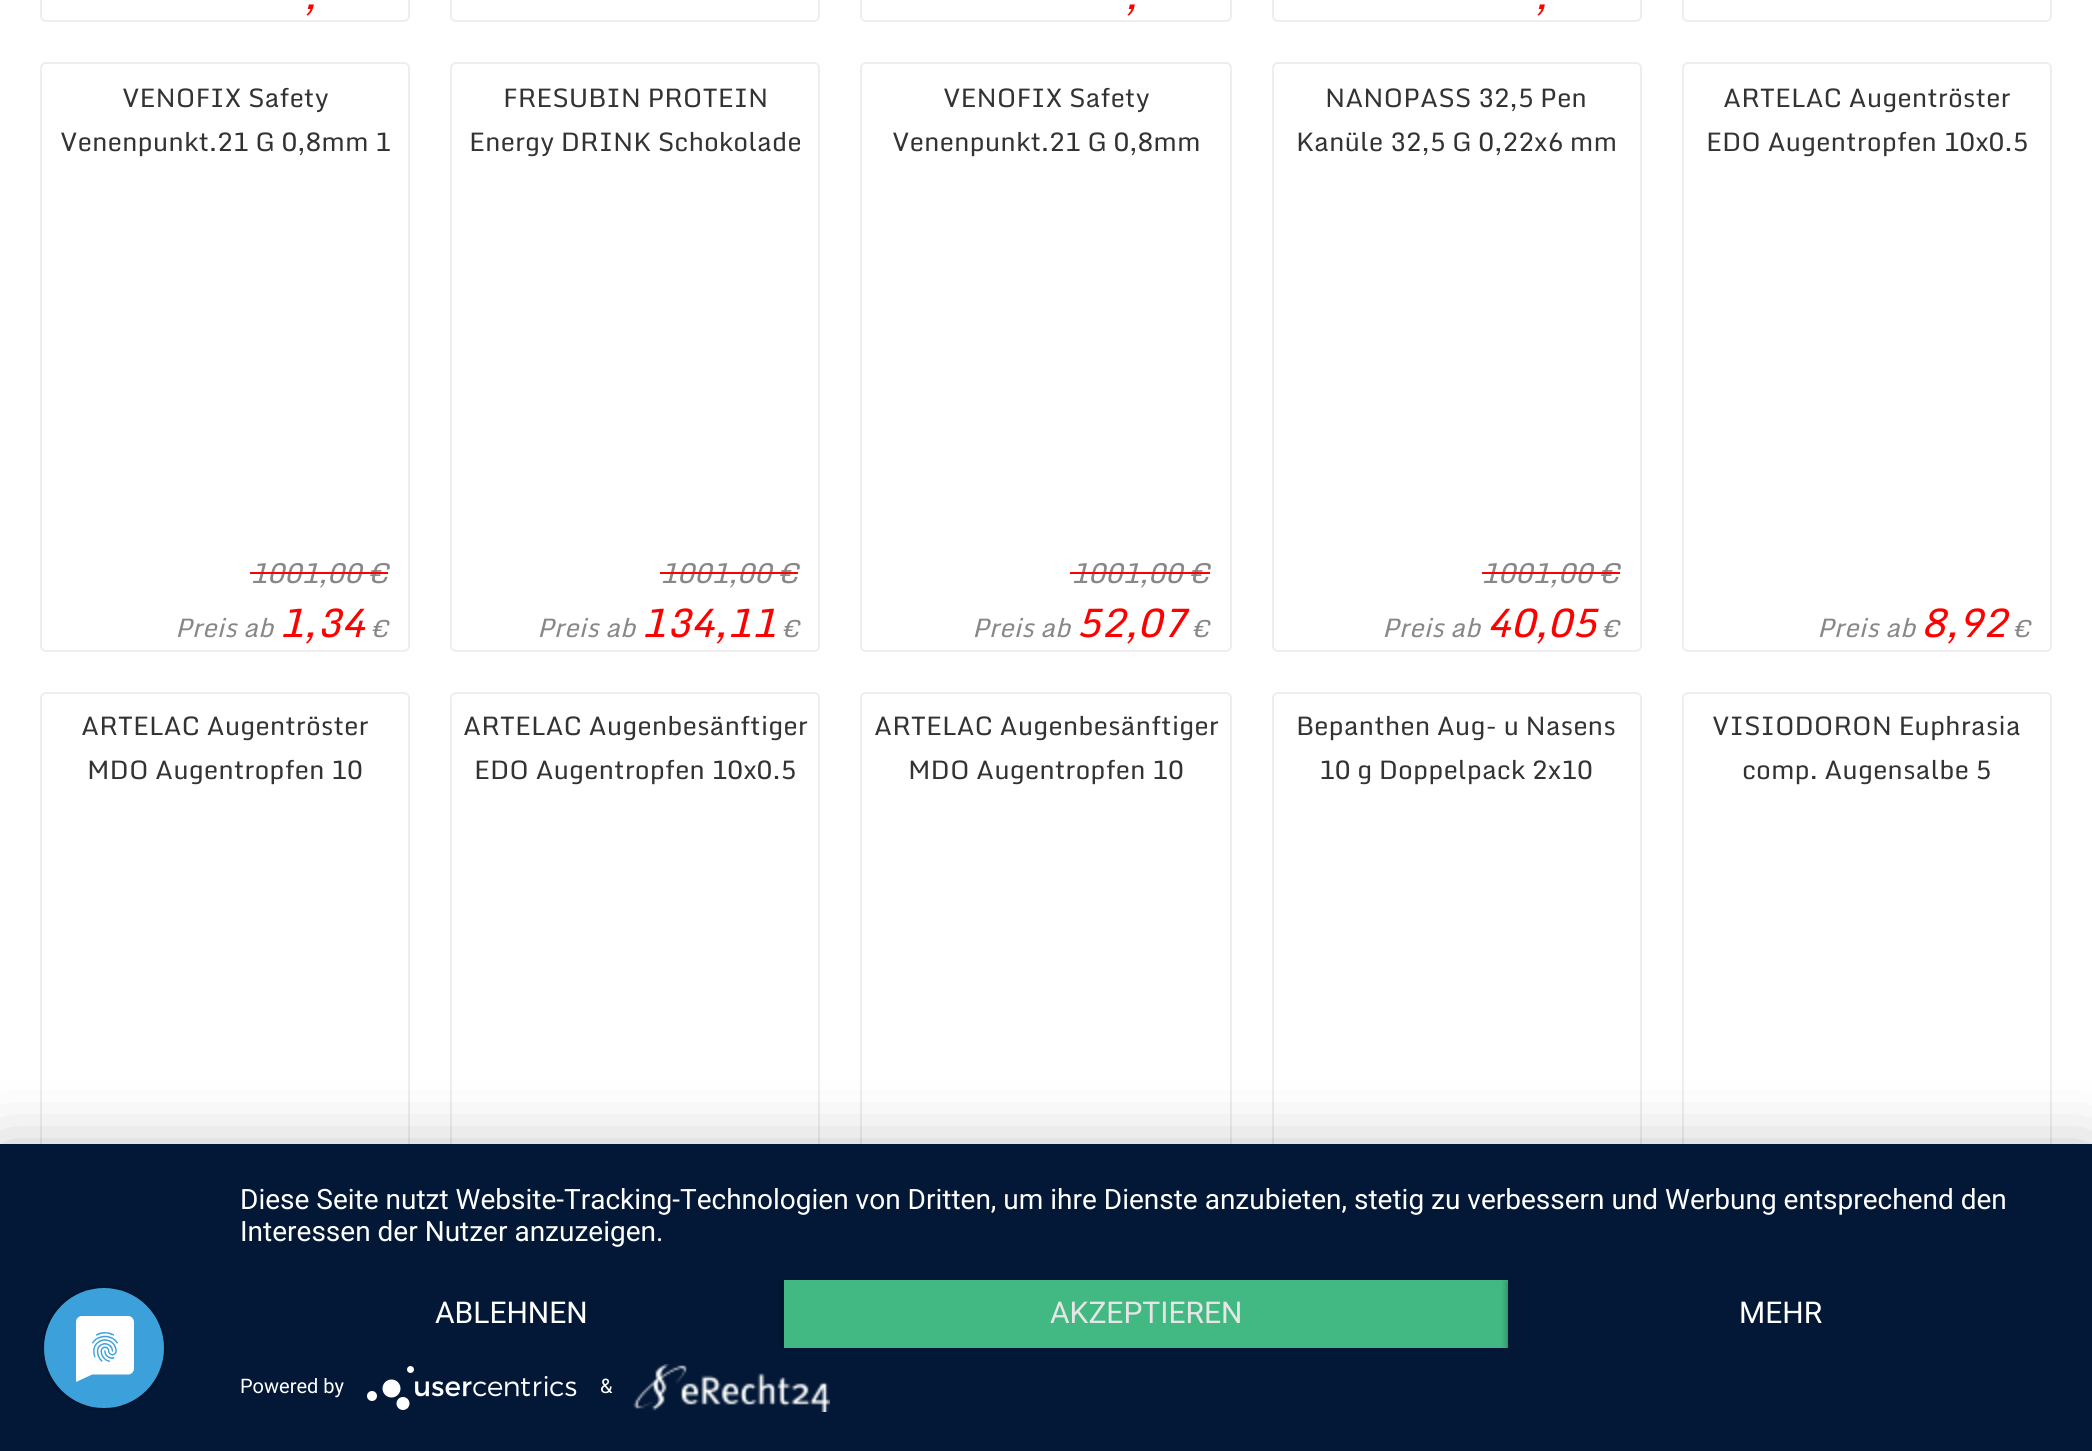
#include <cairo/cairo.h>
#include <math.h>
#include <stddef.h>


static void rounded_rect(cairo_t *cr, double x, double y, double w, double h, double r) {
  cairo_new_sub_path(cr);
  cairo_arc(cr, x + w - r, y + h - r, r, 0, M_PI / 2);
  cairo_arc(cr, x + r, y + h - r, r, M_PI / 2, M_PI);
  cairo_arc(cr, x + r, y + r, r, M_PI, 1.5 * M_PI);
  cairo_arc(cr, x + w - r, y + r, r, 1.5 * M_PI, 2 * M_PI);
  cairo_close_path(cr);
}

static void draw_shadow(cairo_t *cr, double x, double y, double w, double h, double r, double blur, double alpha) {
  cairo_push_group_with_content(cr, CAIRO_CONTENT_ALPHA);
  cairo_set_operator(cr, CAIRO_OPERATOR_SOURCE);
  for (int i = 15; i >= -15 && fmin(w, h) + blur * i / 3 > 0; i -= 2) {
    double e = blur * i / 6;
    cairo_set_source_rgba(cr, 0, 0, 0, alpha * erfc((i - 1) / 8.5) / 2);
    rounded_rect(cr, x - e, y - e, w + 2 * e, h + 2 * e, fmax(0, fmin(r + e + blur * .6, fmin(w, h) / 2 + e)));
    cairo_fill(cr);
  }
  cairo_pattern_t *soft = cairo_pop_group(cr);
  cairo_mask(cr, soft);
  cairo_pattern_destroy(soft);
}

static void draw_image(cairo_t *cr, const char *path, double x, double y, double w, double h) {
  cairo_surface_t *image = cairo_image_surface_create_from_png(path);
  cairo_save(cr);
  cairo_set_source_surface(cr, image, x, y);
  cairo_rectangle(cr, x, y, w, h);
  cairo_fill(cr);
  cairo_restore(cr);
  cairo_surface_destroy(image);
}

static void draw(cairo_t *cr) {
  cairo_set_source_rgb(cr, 1, 1, 1);
  cairo_paint(cr);
  rounded_rect(cr, 41, -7, 368, 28, 5);
  cairo_set_source_rgb(cr, 238 / 255.0, 238 / 255.0, 238 / 255.0);
  cairo_stroke(cr);
  rounded_rect(cr, 451, -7, 368, 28, 5);
  cairo_stroke(cr);
  rounded_rect(cr, 861, -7, 370, 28, 5);
  cairo_stroke(cr);
  rounded_rect(cr, 1273, -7, 368, 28, 5);
  cairo_stroke(cr);
  rounded_rect(cr, 1683, -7, 368, 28, 5);
  cairo_stroke(cr);
  rounded_rect(cr, 41, 63, 368, 588, 5);
  cairo_stroke(cr);
  rounded_rect(cr, 451, 63, 368, 588, 5);
  cairo_stroke(cr);
  rounded_rect(cr, 861, 63, 370, 588, 5);
  cairo_stroke(cr);
  rounded_rect(cr, 1273, 63, 368, 588, 5);
  cairo_stroke(cr);
  rounded_rect(cr, 1683, 63, 368, 588, 5);
  cairo_stroke(cr);
  rounded_rect(cr, 41, 693, 368, 586, 5);
  cairo_stroke(cr);
  rounded_rect(cr, 451, 693, 368, 586, 5);
  cairo_stroke(cr);
  rounded_rect(cr, 861, 693, 370, 586, 5);
  cairo_stroke(cr);
  rounded_rect(cr, 1273, 693, 368, 586, 5);
  cairo_stroke(cr);
  rounded_rect(cr, 1683, 693, 368, 586, 5);
  cairo_stroke(cr);
  cairo_set_source_rgb(cr, 0, 0, 0);
  draw_shadow(cr, 0, 1156, 2092, 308, 0, 36, 0.3);
  cairo_set_source_rgb(cr, 2 / 255.0, 24 / 255.0, 54 / 255.0);
  cairo_rectangle(cr, 0, 1144, 2092, 307);
  cairo_fill(cr);
  draw_image(cr, "images/1.png", 42, 1286, 124, 124);
  cairo_save(cr);
  cairo_rectangle(cr, 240, 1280, 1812, 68);
  cairo_clip(cr);
  cairo_set_source_rgb(cr, 0, 0, 0);
  draw_shadow(cr, 784, 1282, 724, 68, 0, 4, 0.4);
  cairo_restore(cr);
  cairo_set_source_rgb(cr, 66 / 255.0, 185 / 255.0, 131 / 255.0);
  cairo_rectangle(cr, 784, 1280, 724, 68);
  cairo_fill(cr);
  cairo_save(cr);
  cairo_rectangle(cr, 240, 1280, 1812, 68);
  cairo_clip(cr);
  cairo_set_source_rgb(cr, 0, 0, 0);
  draw_shadow(cr, 1508, 1282, 544, 68, 0, 4, 0.4);
  cairo_restore(cr);
  cairo_set_source_rgb(cr, 2 / 255.0, 24 / 255.0, 54 / 255.0);
  cairo_rectangle(cr, 1508, 1280, 544, 68);
  cairo_fill(cr);
  draw_image(cr, "images/2.png", 367, 1366, 210, 44);
  draw_image(cr, "images/3.png", 633, 1364, 197, 48);
  cairo_select_font_face(cr, "Monda", CAIRO_FONT_SLANT_ITALIC, CAIRO_FONT_WEIGHT_NORMAL);
  cairo_set_font_size(cr, 40);
  cairo_set_source_rgb(cr, 1, 0, 0);
  cairo_move_to(cr, 304, 9);
  cairo_show_text(cr, ",");
  cairo_move_to(cr, 1125, 9);
  cairo_show_text(cr, ",");
  cairo_move_to(cr, 1535, 9);
  cairo_show_text(cr, ",");
  cairo_select_font_face(cr, "Monda", CAIRO_FONT_SLANT_NORMAL, CAIRO_FONT_WEIGHT_NORMAL);
  cairo_set_font_size(cr, 26);
  cairo_set_source_rgb(cr, 51 / 255.0, 51 / 255.0, 51 / 255.0);
  cairo_move_to(cr, 122, 107);
  cairo_show_text(cr, "VENOFIX Safety");
  cairo_move_to(cr, 60, 151);
  cairo_show_text(cr, "Venenpunkt.21 G 0,8mm 1");
  cairo_select_font_face(cr, "Monda", CAIRO_FONT_SLANT_ITALIC, CAIRO_FONT_WEIGHT_NORMAL);
  cairo_set_font_size(cr, 28);
  cairo_set_source_rgb(cr, 136 / 255.0, 136 / 255.0, 136 / 255.0);
  cairo_move_to(cr, 250, 583);
  cairo_show_text(cr, "1001,00 €");
  cairo_set_source_rgb(cr, 1, 0, 0);
  cairo_rectangle(cr, 250, 572, 138, 2);
  cairo_fill(cr);
  cairo_set_font_size(cr, 26);
  cairo_set_source_rgb(cr, 136 / 255.0, 136 / 255.0, 136 / 255.0);
  cairo_move_to(cr, 175, 637);
  cairo_show_text(cr, "Preis ab");
  cairo_set_font_size(cr, 40);
  cairo_set_source_rgb(cr, 1, 0, 0);
  cairo_move_to(cr, 279, 637);
  cairo_show_text(cr, "1,34");
  cairo_set_font_size(cr, 24);
  cairo_set_source_rgb(cr, 136 / 255.0, 136 / 255.0, 136 / 255.0);
  cairo_move_to(cr, 371, 637);
  cairo_show_text(cr, "€");
  cairo_select_font_face(cr, "Monda", CAIRO_FONT_SLANT_NORMAL, CAIRO_FONT_WEIGHT_NORMAL);
  cairo_set_font_size(cr, 26);
  cairo_set_source_rgb(cr, 51 / 255.0, 51 / 255.0, 51 / 255.0);
  cairo_move_to(cr, 503, 107);
  cairo_show_text(cr, "FRESUBIN PROTEIN");
  cairo_move_to(cr, 469, 151);
  cairo_show_text(cr, "Energy DRINK Schokolade");
  cairo_select_font_face(cr, "Monda", CAIRO_FONT_SLANT_ITALIC, CAIRO_FONT_WEIGHT_NORMAL);
  cairo_set_font_size(cr, 28);
  cairo_set_source_rgb(cr, 136 / 255.0, 136 / 255.0, 136 / 255.0);
  cairo_move_to(cr, 660, 583);
  cairo_show_text(cr, "1001,00 €");
  cairo_set_source_rgb(cr, 1, 0, 0);
  cairo_rectangle(cr, 660, 572, 138, 2);
  cairo_fill(cr);
  cairo_set_font_size(cr, 26);
  cairo_set_source_rgb(cr, 136 / 255.0, 136 / 255.0, 136 / 255.0);
  cairo_move_to(cr, 537, 637);
  cairo_show_text(cr, "Preis ab");
  cairo_set_font_size(cr, 40);
  cairo_set_source_rgb(cr, 1, 0, 0);
  cairo_move_to(cr, 641, 637);
  cairo_show_text(cr, "134,11");
  cairo_set_font_size(cr, 24);
  cairo_set_source_rgb(cr, 136 / 255.0, 136 / 255.0, 136 / 255.0);
  cairo_move_to(cr, 782, 637);
  cairo_show_text(cr, "€");
  cairo_select_font_face(cr, "Monda", CAIRO_FONT_SLANT_NORMAL, CAIRO_FONT_WEIGHT_NORMAL);
  cairo_set_font_size(cr, 26);
  cairo_set_source_rgb(cr, 51 / 255.0, 51 / 255.0, 51 / 255.0);
  cairo_move_to(cr, 943, 107);
  cairo_show_text(cr, "VENOFIX Safety");
  cairo_move_to(cr, 892, 151);
  cairo_show_text(cr, "Venenpunkt.21 G 0,8mm");
  cairo_select_font_face(cr, "Monda", CAIRO_FONT_SLANT_ITALIC, CAIRO_FONT_WEIGHT_NORMAL);
  cairo_set_font_size(cr, 28);
  cairo_set_source_rgb(cr, 136 / 255.0, 136 / 255.0, 136 / 255.0);
  cairo_move_to(cr, 1071, 583);
  cairo_show_text(cr, "1001,00 €");
  cairo_set_source_rgb(cr, 1, 0, 0);
  cairo_rectangle(cr, 1070, 572, 140, 2);
  cairo_fill(cr);
  cairo_set_font_size(cr, 26);
  cairo_set_source_rgb(cr, 136 / 255.0, 136 / 255.0, 136 / 255.0);
  cairo_move_to(cr, 972, 637);
  cairo_show_text(cr, "Preis ab");
  cairo_set_font_size(cr, 40);
  cairo_set_source_rgb(cr, 1, 0, 0);
  cairo_move_to(cr, 1076, 637);
  cairo_show_text(cr, "52,07");
  cairo_set_font_size(cr, 24);
  cairo_set_source_rgb(cr, 136 / 255.0, 136 / 255.0, 136 / 255.0);
  cairo_move_to(cr, 1192, 637);
  cairo_show_text(cr, "€");
  cairo_select_font_face(cr, "Monda", CAIRO_FONT_SLANT_NORMAL, CAIRO_FONT_WEIGHT_NORMAL);
  cairo_set_font_size(cr, 26);
  cairo_set_source_rgb(cr, 51 / 255.0, 51 / 255.0, 51 / 255.0);
  cairo_move_to(cr, 1325, 107);
  cairo_show_text(cr, "NANOPASS 32,5 Pen");
  cairo_move_to(cr, 1296, 151);
  cairo_show_text(cr, "Kanüle 32,5 G 0,22x6 mm");
  cairo_select_font_face(cr, "Monda", CAIRO_FONT_SLANT_ITALIC, CAIRO_FONT_WEIGHT_NORMAL);
  cairo_set_font_size(cr, 28);
  cairo_set_source_rgb(cr, 136 / 255.0, 136 / 255.0, 136 / 255.0);
  cairo_move_to(cr, 1481, 583);
  cairo_show_text(cr, "1001,00 €");
  cairo_set_source_rgb(cr, 1, 0, 0);
  cairo_rectangle(cr, 1482, 572, 138, 2);
  cairo_fill(cr);
  cairo_set_font_size(cr, 26);
  cairo_set_source_rgb(cr, 136 / 255.0, 136 / 255.0, 136 / 255.0);
  cairo_move_to(cr, 1382, 637);
  cairo_show_text(cr, "Preis ab");
  cairo_set_font_size(cr, 40);
  cairo_set_source_rgb(cr, 1, 0, 0);
  cairo_move_to(cr, 1486, 637);
  cairo_show_text(cr, "40,05");
  cairo_set_font_size(cr, 24);
  cairo_set_source_rgb(cr, 136 / 255.0, 136 / 255.0, 136 / 255.0);
  cairo_move_to(cr, 1602, 637);
  cairo_show_text(cr, "€");
  cairo_select_font_face(cr, "Monda", CAIRO_FONT_SLANT_NORMAL, CAIRO_FONT_WEIGHT_NORMAL);
  cairo_set_font_size(cr, 26);
  cairo_set_source_rgb(cr, 51 / 255.0, 51 / 255.0, 51 / 255.0);
  cairo_move_to(cr, 1723, 107);
  cairo_show_text(cr, "ARTELAC Augentröster");
  cairo_move_to(cr, 1706, 151);
  cairo_show_text(cr, "EDO Augentropfen 10x0.5");
  cairo_select_font_face(cr, "Monda", CAIRO_FONT_SLANT_ITALIC, CAIRO_FONT_WEIGHT_NORMAL);
  cairo_set_source_rgb(cr, 136 / 255.0, 136 / 255.0, 136 / 255.0);
  cairo_move_to(cr, 1817, 637);
  cairo_show_text(cr, "Preis ab");
  cairo_set_font_size(cr, 40);
  cairo_set_source_rgb(cr, 1, 0, 0);
  cairo_move_to(cr, 1921, 637);
  cairo_show_text(cr, "8,92");
  cairo_set_font_size(cr, 24);
  cairo_set_source_rgb(cr, 136 / 255.0, 136 / 255.0, 136 / 255.0);
  cairo_move_to(cr, 2013, 637);
  cairo_show_text(cr, "€");
  cairo_select_font_face(cr, "Monda", CAIRO_FONT_SLANT_NORMAL, CAIRO_FONT_WEIGHT_NORMAL);
  cairo_set_font_size(cr, 26);
  cairo_set_source_rgb(cr, 51 / 255.0, 51 / 255.0, 51 / 255.0);
  cairo_move_to(cr, 81, 735);
  cairo_show_text(cr, "ARTELAC Augentröster");
  cairo_move_to(cr, 87, 779);
  cairo_show_text(cr, "MDO Augentropfen 10");
  cairo_move_to(cr, 463, 735);
  cairo_show_text(cr, "ARTELAC Augenbesänftiger");
  cairo_move_to(cr, 474, 779);
  cairo_show_text(cr, "EDO Augentropfen 10x0.5");
  cairo_move_to(cr, 874, 735);
  cairo_show_text(cr, "ARTELAC Augenbesänftiger");
  cairo_move_to(cr, 908, 779);
  cairo_show_text(cr, "MDO Augentropfen 10");
  cairo_move_to(cr, 1296, 735);
  cairo_show_text(cr, "Bepanthen Aug- u Nasens");
  cairo_move_to(cr, 1319, 779);
  cairo_show_text(cr, "10 g Doppelpack 2x10");
  cairo_move_to(cr, 1712, 735);
  cairo_show_text(cr, "VISIODORON Euphrasia");
  cairo_move_to(cr, 1742, 779);
  cairo_show_text(cr, "comp. Augensalbe 5");
  cairo_select_font_face(cr, "Roboto", CAIRO_FONT_SLANT_NORMAL, CAIRO_FONT_WEIGHT_NORMAL);
  cairo_set_font_size(cr, 28);
  cairo_set_source_rgb(cr, 1, 1, 1);
  cairo_move_to(cr, 240, 1209);
  cairo_show_text(cr, "Diese Seite nutzt Website-Tracking-Technologien von Dritten, um ihre Dienste anzubieten, stetig zu verbessern und Werbung entsprechend den");
  cairo_move_to(cr, 240, 1241);
  cairo_show_text(cr, "Interessen der Nutzer anzuzeigen.");
  cairo_set_font_size(cr, 30);
  cairo_move_to(cr, 435, 1323);
  cairo_show_text(cr, "ABLEHNEN");
  cairo_set_source_rgb(cr, 230 / 255.0, 230 / 255.0, 230 / 255.0);
  cairo_move_to(cr, 1050, 1323);
  cairo_show_text(cr, "AKZEPTIEREN");
  cairo_set_source_rgb(cr, 1, 1, 1);
  cairo_move_to(cr, 1739, 1323);
  cairo_show_text(cr, "MEHR");
  cairo_set_font_size(cr, 20);
  cairo_move_to(cr, 240, 1393);
  cairo_show_text(cr, "Powered by");
  cairo_move_to(cr, 600, 1393);
  cairo_show_text(cr, "&");
}

int main(void) {
  cairo_surface_t *surface = cairo_image_surface_create(CAIRO_FORMAT_RGB24, 2092, 1451);
  cairo_t *cr = cairo_create(surface);
  cairo_font_options_t *options = cairo_font_options_create();
  cairo_font_options_set_hint_metrics(options, CAIRO_HINT_METRICS_OFF);
  cairo_font_options_set_hint_style(options, CAIRO_HINT_STYLE_NONE);
  cairo_set_font_options(cr, options);
  cairo_set_miter_limit(cr, 4);
  draw(cr);
  cairo_surface_write_to_png(surface, "out.png");
  cairo_font_options_destroy(options);
  cairo_destroy(cr);
  cairo_surface_destroy(surface);
  return 0;
}
